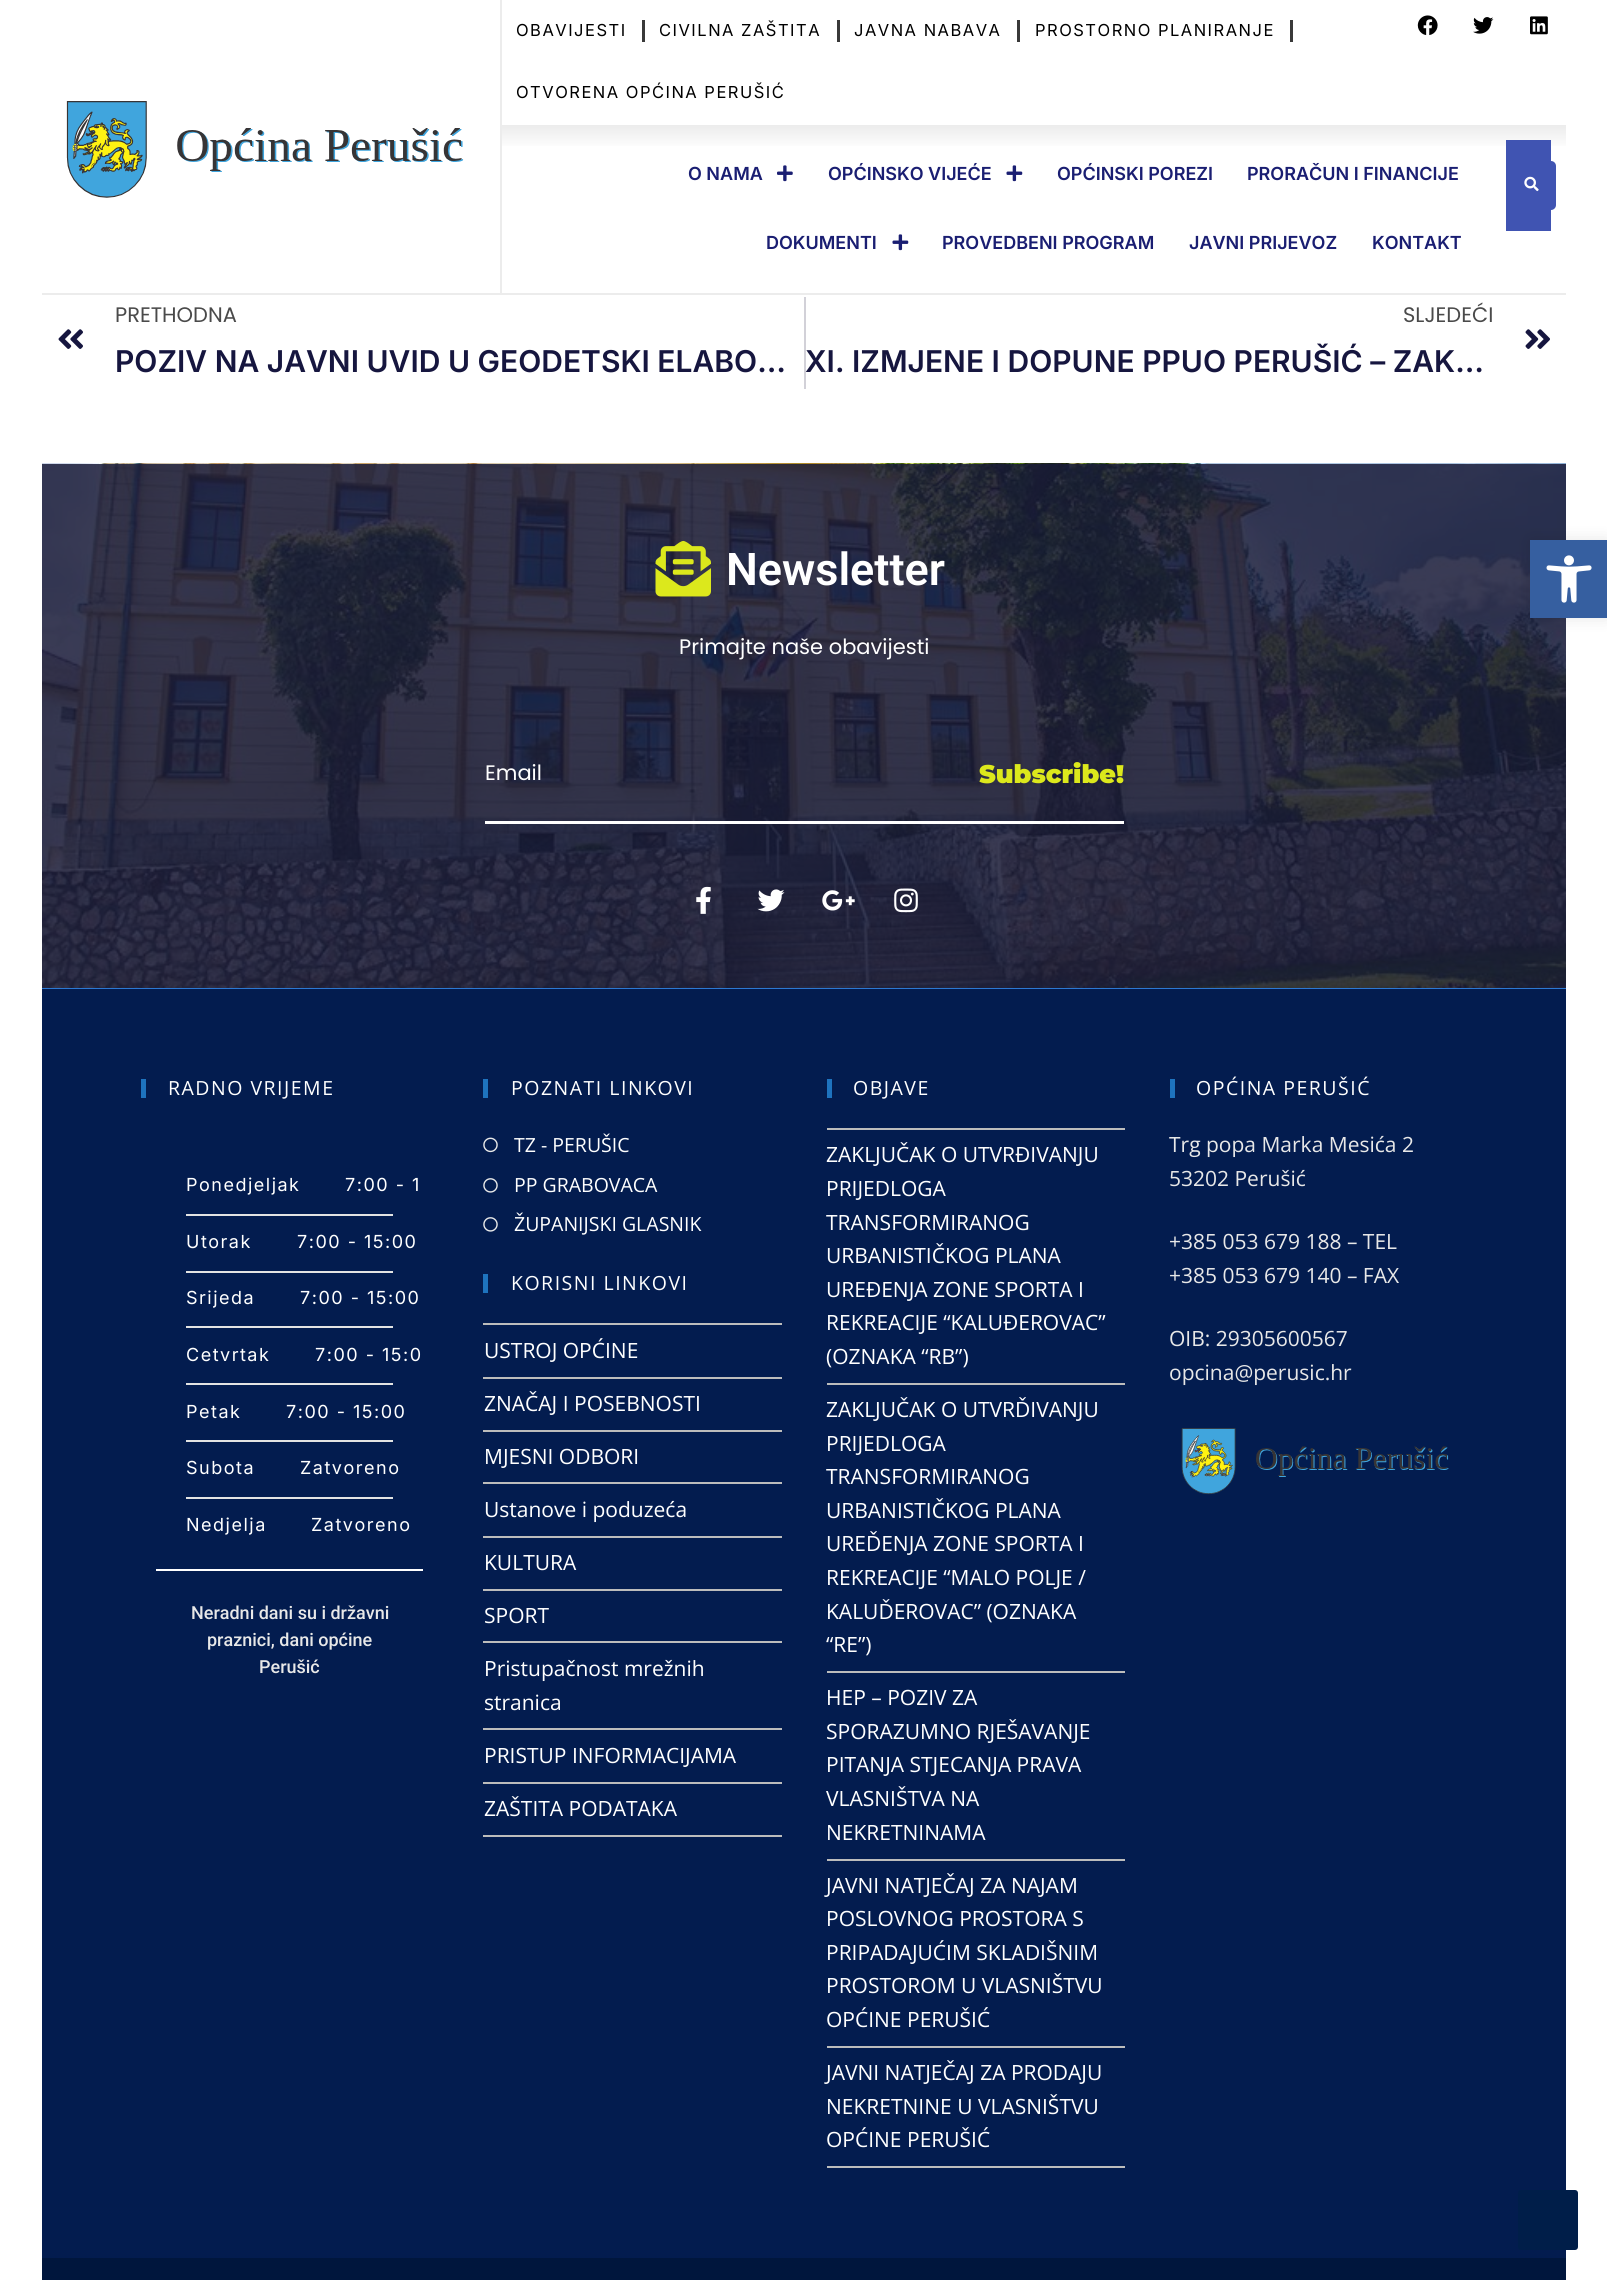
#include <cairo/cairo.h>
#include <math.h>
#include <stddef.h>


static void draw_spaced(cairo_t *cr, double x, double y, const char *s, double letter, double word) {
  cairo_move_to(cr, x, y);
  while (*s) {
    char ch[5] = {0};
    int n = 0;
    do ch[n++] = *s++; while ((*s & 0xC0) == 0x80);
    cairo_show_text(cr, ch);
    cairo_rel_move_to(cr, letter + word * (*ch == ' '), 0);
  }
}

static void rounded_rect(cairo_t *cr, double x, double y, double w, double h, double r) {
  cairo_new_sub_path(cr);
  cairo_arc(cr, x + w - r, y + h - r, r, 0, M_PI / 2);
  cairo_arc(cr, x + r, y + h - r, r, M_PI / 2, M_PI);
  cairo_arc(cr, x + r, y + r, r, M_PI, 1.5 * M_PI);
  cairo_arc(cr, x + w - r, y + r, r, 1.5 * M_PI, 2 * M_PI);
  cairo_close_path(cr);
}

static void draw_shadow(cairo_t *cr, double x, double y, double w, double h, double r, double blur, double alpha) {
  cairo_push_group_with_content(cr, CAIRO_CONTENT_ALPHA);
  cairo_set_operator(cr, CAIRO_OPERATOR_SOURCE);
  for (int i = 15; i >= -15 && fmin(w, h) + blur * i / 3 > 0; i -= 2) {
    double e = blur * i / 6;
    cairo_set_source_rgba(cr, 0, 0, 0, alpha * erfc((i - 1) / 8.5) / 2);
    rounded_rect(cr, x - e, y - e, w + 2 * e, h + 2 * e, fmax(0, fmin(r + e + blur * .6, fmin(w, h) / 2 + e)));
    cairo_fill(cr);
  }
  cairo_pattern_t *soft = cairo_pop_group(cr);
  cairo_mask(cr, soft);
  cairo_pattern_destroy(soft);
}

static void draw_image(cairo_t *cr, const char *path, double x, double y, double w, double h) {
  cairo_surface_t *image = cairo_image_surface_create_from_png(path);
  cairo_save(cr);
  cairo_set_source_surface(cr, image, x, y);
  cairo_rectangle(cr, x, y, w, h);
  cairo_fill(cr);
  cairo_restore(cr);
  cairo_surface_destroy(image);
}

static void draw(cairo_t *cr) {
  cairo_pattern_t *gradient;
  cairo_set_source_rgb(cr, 1, 1, 1);
  cairo_paint(cr);
  cairo_set_source_rgb(cr, 236 / 255.0, 236 / 255.0, 236 / 255.0);
  cairo_rectangle(cr, 42, 293, 1524, 2);
  cairo_fill(cr);
  draw_image(cr, "images/1.png", 66, 101, 398, 97);
  cairo_rectangle(cr, 500, 0, 2, 293);
  cairo_fill(cr);
  cairo_set_source_rgb(cr, 57 / 255.0, 57 / 255.0, 57 / 255.0);
  cairo_rectangle(cr, 642, 20, 3, 22);
  cairo_fill(cr);
  cairo_rectangle(cr, 837, 20, 3, 22);
  cairo_fill(cr);
  cairo_rectangle(cr, 1017, 20, 3, 22);
  cairo_fill(cr);
  cairo_rectangle(cr, 1290, 20, 3, 22);
  cairo_fill(cr);
  draw_image(cr, "images/2.png", 1417, 15, 21, 21);
  draw_image(cr, "images/3.png", 1473, 17, 21, 17);
  draw_image(cr, "images/4.png", 1530, 16, 18, 19);
  gradient = cairo_pattern_create_linear(1034, 124, 1034, 293);
  cairo_pattern_add_color_stop_rgba(gradient, 0.01, 236 / 255.0, 236 / 255.0, 236 / 255.0, 1);
  cairo_pattern_add_color_stop_rgba(gradient, 0.15, 1, 1, 1, 1);
  cairo_set_source(cr, gradient);
  cairo_pattern_destroy(gradient);
  cairo_rectangle(cr, 502, 125, 1064, 21);
  cairo_fill(cr);
  draw_image(cr, "images/5.png", 777, 165, 16, 17);
  draw_image(cr, "images/6.png", 1006, 165, 17, 17);
  draw_image(cr, "images/6.png", 892, 234, 17, 17);
  cairo_set_source_rgb(cr, 64 / 255.0, 84 / 255.0, 178 / 255.0);
  cairo_rectangle(cr, 1506, 140, 45, 91);
  cairo_fill(cr);
  rounded_rect(cr, 1506, 161, 50, 49, 5);
  cairo_fill(cr);
  draw_image(cr, "images/7.png", 1524, 176, 15, 16);
  draw_image(cr, "images/8.png", 58, 329, 25, 20);
  cairo_set_source_rgb(cr, 210 / 255.0, 209 / 255.0, 216 / 255.0);
  cairo_rectangle(cr, 804, 297, 2, 92);
  cairo_fill(cr);
  draw_image(cr, "images/9.png", 1525, 329, 25, 20);
  cairo_set_source_rgb(cr, 44 / 255.0, 120 / 255.0, 210 / 255.0);
  cairo_rectangle(cr, 42, 988, 1524, 1);
  cairo_fill(cr);
  draw_image(cr, "images/10.png", 42, 463, 1524, 525);
  draw_image(cr, "images/11.png", 655, 540, 56, 57);
  cairo_set_source_rgb(cr, 1, 1, 1);
  cairo_rectangle(cr, 485, 821, 639, 3);
  cairo_fill(cr);
  draw_image(cr, "images/12.png", 696, 886, 15, 28);
  draw_image(cr, "images/13.png", 757, 889, 28, 23);
  draw_image(cr, "images/14.png", 822, 890, 33, 21);
  draw_image(cr, "images/15.png", 894, 888, 24, 25);
  cairo_set_source_rgb(cr, 3 / 255.0, 28 / 255.0, 79 / 255.0);
  cairo_rectangle(cr, 42, 989, 1524, 1269);
  cairo_fill(cr);
  cairo_set_source_rgb(cr, 30 / 255.0, 115 / 255.0, 190 / 255.0);
  cairo_rectangle(cr, 141, 1079, 5, 19);
  cairo_fill(cr);
  cairo_set_source_rgb(cr, 227 / 255.0, 227 / 255.0, 227 / 255.0);
  cairo_rectangle(cr, 186, 1214, 207, 2);
  cairo_fill(cr);
  cairo_rectangle(cr, 186, 1271, 207, 2);
  cairo_fill(cr);
  cairo_rectangle(cr, 186, 1326, 207, 2);
  cairo_fill(cr);
  cairo_rectangle(cr, 186, 1383, 207, 2);
  cairo_fill(cr);
  cairo_rectangle(cr, 186, 1440, 207, 2);
  cairo_fill(cr);
  cairo_rectangle(cr, 186, 1497, 207, 2);
  cairo_fill(cr);
  cairo_set_source_rgb(cr, 1, 1, 1);
  cairo_rectangle(cr, 156, 1569, 267, 2);
  cairo_fill(cr);
  cairo_set_source_rgb(cr, 30 / 255.0, 115 / 255.0, 190 / 255.0);
  cairo_rectangle(cr, 483, 1079, 5, 19);
  cairo_fill(cr);
  draw_image(cr, "images/16.png", 483, 1137, 15, 16);
  draw_image(cr, "images/17.png", 483, 1178, 15, 15);
  draw_image(cr, "images/17.png", 483, 1217, 15, 15);
  cairo_rectangle(cr, 483, 1274, 5, 19);
  cairo_fill(cr);
  cairo_set_source_rgb(cr, 188 / 255.0, 188 / 255.0, 188 / 255.0);
  cairo_rectangle(cr, 483, 1323, 299, 2);
  cairo_fill(cr);
  cairo_rectangle(cr, 483, 1377, 299, 2);
  cairo_fill(cr);
  cairo_rectangle(cr, 483, 1430, 299, 2);
  cairo_fill(cr);
  cairo_rectangle(cr, 483, 1482, 299, 2);
  cairo_fill(cr);
  cairo_rectangle(cr, 483, 1536, 299, 2);
  cairo_fill(cr);
  cairo_rectangle(cr, 483, 1589, 299, 2);
  cairo_fill(cr);
  cairo_rectangle(cr, 483, 1641, 299, 2);
  cairo_fill(cr);
  cairo_rectangle(cr, 483, 1728, 299, 2);
  cairo_fill(cr);
  cairo_rectangle(cr, 483, 1782, 299, 2);
  cairo_fill(cr);
  cairo_rectangle(cr, 483, 1835, 299, 2);
  cairo_fill(cr);
  cairo_set_source_rgb(cr, 30 / 255.0, 115 / 255.0, 190 / 255.0);
  cairo_rectangle(cr, 827, 1079, 5, 19);
  cairo_fill(cr);
  cairo_set_source_rgb(cr, 188 / 255.0, 188 / 255.0, 188 / 255.0);
  cairo_rectangle(cr, 827, 1128, 298, 2);
  cairo_fill(cr);
  cairo_rectangle(cr, 827, 1383, 298, 2);
  cairo_fill(cr);
  cairo_rectangle(cr, 827, 1671, 298, 2);
  cairo_fill(cr);
  cairo_rectangle(cr, 827, 1859, 298, 2);
  cairo_fill(cr);
  cairo_rectangle(cr, 827, 2046, 298, 2);
  cairo_fill(cr);
  cairo_rectangle(cr, 827, 2166, 298, 2);
  cairo_fill(cr);
  cairo_set_source_rgb(cr, 30 / 255.0, 115 / 255.0, 190 / 255.0);
  cairo_rectangle(cr, 1170, 1079, 5, 19);
  cairo_fill(cr);
  draw_image(cr, "images/18.png", 1181, 1428, 268, 67);
  cairo_set_source_rgb(cr, 0, 22 / 255.0, 61 / 255.0);
  cairo_rectangle(cr, 42, 2258, 1524, 22);
  cairo_fill(cr);
  cairo_set_source_rgb(cr, 0, 0, 0);
  draw_shadow(cr, 1530, 540, 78, 78, 0, 7.5, 0.1);
  cairo_set_source_rgb(cr, 54 / 255.0, 95 / 255.0, 160 / 255.0);
  cairo_rectangle(cr, 1530, 540, 77, 78);
  cairo_fill(cr);
  draw_image(cr, "images/19.png", 1546, 555, 46, 48);
  cairo_set_source_rgb(cr, 0, 30 / 255.0, 73 / 255.0);
  rounded_rect(cr, 1518, 2190, 60, 60, 3);
  cairo_fill(cr);
  cairo_select_font_face(cr, "Inter", CAIRO_FONT_SLANT_NORMAL, CAIRO_FONT_WEIGHT_NORMAL);
  cairo_set_font_size(cr, 16.5);
  cairo_set_source_rgb(cr, 0, 0, 0);
  draw_spaced(cr, 516, 36, "OBAVIJESTI", 1.5, 0);
  draw_spaced(cr, 659, 36, "CIVILNA ZAŠTITA", 1.5, 0);
  draw_spaced(cr, 854, 36, "JAVNA NABAVA", 1.5, 0);
  draw_spaced(cr, 1035, 36, "PROSTORNO PLANIRANJE", 1.5, 0);
  draw_spaced(cr, 516, 98, "OTVORENA OPĆINA PERUŠIĆ", 1.5, 0);
  cairo_select_font_face(cr, "Inter SemiBold", CAIRO_FONT_SLANT_NORMAL, CAIRO_FONT_WEIGHT_NORMAL);
  cairo_set_font_size(cr, 18);
  cairo_set_source_rgb(cr, 26 / 255.0, 30 / 255.0, 114 / 255.0);
  cairo_move_to(cr, 688, 180);
  cairo_show_text(cr, "O NAMA");
  cairo_move_to(cr, 828, 180);
  cairo_show_text(cr, "OPĆINSKO VIJEĆE");
  cairo_move_to(cr, 1057, 180);
  cairo_show_text(cr, "OPĆINSKI POREZI");
  cairo_move_to(cr, 1247, 180);
  cairo_show_text(cr, "PRORAČUN I FINANCIJE");
  cairo_move_to(cr, 766, 249);
  cairo_show_text(cr, "DOKUMENTI");
  cairo_move_to(cr, 942, 249);
  cairo_show_text(cr, "PROVEDBENI PROGRAM");
  cairo_move_to(cr, 1189, 249);
  cairo_show_text(cr, "JAVNI PRIJEVOZ");
  cairo_move_to(cr, 1372, 249);
  cairo_show_text(cr, "KONTAKT");
  cairo_select_font_face(cr, "Poppins", CAIRO_FONT_SLANT_NORMAL, CAIRO_FONT_WEIGHT_NORMAL);
  cairo_set_font_size(cr, 21);
  cairo_set_source_rgb(cr, 74 / 255.0, 74 / 255.0, 74 / 255.0);
  cairo_move_to(cr, 115, 322);
  cairo_show_text(cr, "PRETHODNA");
  cairo_select_font_face(cr, "Inter SemiBold", CAIRO_FONT_SLANT_NORMAL, CAIRO_FONT_WEIGHT_NORMAL);
  cairo_set_font_size(cr, 30);
  cairo_set_source_rgb(cr, 22 / 255.0, 22 / 255.0, 63 / 255.0);
  cairo_move_to(cr, 115, 372);
  cairo_show_text(cr, "POZIV NA JAVNI UVID U GEODETSKI ELABO…");
  cairo_select_font_face(cr, "Poppins", CAIRO_FONT_SLANT_NORMAL, CAIRO_FONT_WEIGHT_NORMAL);
  cairo_set_font_size(cr, 21);
  cairo_set_source_rgb(cr, 74 / 255.0, 74 / 255.0, 74 / 255.0);
  cairo_move_to(cr, 1403, 322);
  cairo_show_text(cr, "SLJEDEĆI");
  cairo_select_font_face(cr, "Inter SemiBold", CAIRO_FONT_SLANT_NORMAL, CAIRO_FONT_WEIGHT_NORMAL);
  cairo_set_font_size(cr, 30);
  cairo_set_source_rgb(cr, 22 / 255.0, 22 / 255.0, 63 / 255.0);
  cairo_move_to(cr, 805, 372);
  cairo_show_text(cr, "XI. IZMJENE I DOPUNE PPUO PERUŠIĆ – ZAK…");
  cairo_select_font_face(cr, "Roboto SemiBold", CAIRO_FONT_SLANT_NORMAL, CAIRO_FONT_WEIGHT_NORMAL);
  cairo_set_font_size(cr, 45);
  cairo_set_source_rgb(cr, 1, 1, 1);
  cairo_move_to(cr, 726, 585);
  cairo_show_text(cr, "Newsletter");
  cairo_select_font_face(cr, "Poppins", CAIRO_FONT_SLANT_NORMAL, CAIRO_FONT_WEIGHT_NORMAL);
  cairo_set_font_size(cr, 21);
  cairo_move_to(cr, 679, 654);
  cairo_show_text(cr, "Primajte naše obavijesti");
  cairo_move_to(cr, 485, 780);
  cairo_show_text(cr, "Email");
  cairo_select_font_face(cr, "Montserrat Black", CAIRO_FONT_SLANT_NORMAL, CAIRO_FONT_WEIGHT_NORMAL);
  cairo_set_font_size(cr, 25.5);
  cairo_set_source_rgb(cr, 220 / 255.0, 232 / 255.0, 28 / 255.0);
  cairo_move_to(cr, 979, 783);
  cairo_show_text(cr, "Subscribe!");
  cairo_select_font_face(cr, "Open Sans", CAIRO_FONT_SLANT_NORMAL, CAIRO_FONT_WEIGHT_NORMAL);
  cairo_set_font_size(cr, 19.5);
  cairo_set_source_rgb(cr, 1, 1, 1);
  draw_spaced(cr, 168, 1095, "RADNO VRIJEME", 1.5, 0);
  cairo_select_font_face(cr, "Inter", CAIRO_FONT_SLANT_NORMAL, CAIRO_FONT_WEIGHT_NORMAL);
  cairo_set_font_size(cr, 18);
  draw_spaced(cr, 186, 1191, "Ponedjeljak", 1.5, 0);
  draw_spaced(cr, 345, 1191, "7:00 - 1", 1.5, 0);
  draw_spaced(cr, 186, 1248, "Utorak", 1.5, 0);
  draw_spaced(cr, 297, 1248, "7:00 - 15:00", 1.5, 0);
  draw_spaced(cr, 186, 1304, "Srijeda", 1.5, 0);
  draw_spaced(cr, 300, 1304, "7:00 - 15:00", 1.5, 0);
  draw_spaced(cr, 186, 1361, "Cetvrtak", 1.5, 0);
  draw_spaced(cr, 315, 1361, "7:00 - 15:0", 1.5, 0);
  draw_spaced(cr, 186, 1418, "Petak", 1.5, 0);
  draw_spaced(cr, 286, 1418, "7:00 - 15:00", 1.5, 0);
  draw_spaced(cr, 186, 1474, "Subota", 1.5, 0);
  draw_spaced(cr, 300, 1474, "Zatvoreno", 1.5, 0);
  draw_spaced(cr, 186, 1531, "Nedjelja", 1.5, 0);
  draw_spaced(cr, 311, 1531, "Zatvoreno", 1.5, 0);
  cairo_select_font_face(cr, "Roboto Medium", CAIRO_FONT_SLANT_NORMAL, CAIRO_FONT_WEIGHT_NORMAL);
  cairo_set_source_rgb(cr, 232 / 255.0, 232 / 255.0, 232 / 255.0);
  cairo_move_to(cr, 191, 1619);
  cairo_show_text(cr, "Neradni dani su i državni");
  cairo_move_to(cr, 207, 1646);
  cairo_show_text(cr, "praznici, dani općine");
  cairo_move_to(cr, 259, 1673);
  cairo_show_text(cr, "Perušić");
  cairo_select_font_face(cr, "Open Sans", CAIRO_FONT_SLANT_NORMAL, CAIRO_FONT_WEIGHT_NORMAL);
  cairo_set_font_size(cr, 19.5);
  cairo_set_source_rgb(cr, 1, 1, 1);
  draw_spaced(cr, 511, 1095, "POZNATI LINKOVI", 1.5, 0);
  cairo_move_to(cr, 514, 1152);
  cairo_show_text(cr, "TZ - PERUŠIC");
  cairo_move_to(cr, 514, 1192);
  cairo_show_text(cr, "PP GRABOVACA");
  cairo_move_to(cr, 514, 1231);
  cairo_show_text(cr, "ŽUPANIJSKI GLASNIK");
  draw_spaced(cr, 511, 1290, "KORISNI LINKOVI", 1.5, 0);
  cairo_set_font_size(cr, 21);
  cairo_move_to(cr, 484, 1358);
  cairo_show_text(cr, "USTROJ OPĆINE");
  cairo_move_to(cr, 484, 1411);
  cairo_show_text(cr, "ZNAČAJ I POSEBNOSTI");
  cairo_move_to(cr, 484, 1464);
  cairo_show_text(cr, "MJESNI ODBORI");
  cairo_move_to(cr, 484, 1517);
  cairo_show_text(cr, "Ustanove i poduzeća");
  cairo_move_to(cr, 484, 1570);
  cairo_show_text(cr, "KULTURA");
  cairo_move_to(cr, 484, 1623);
  cairo_show_text(cr, "SPORT");
  cairo_move_to(cr, 484, 1676);
  cairo_show_text(cr, "Pristupačnost mrežnih");
  cairo_move_to(cr, 484, 1710);
  cairo_show_text(cr, "stranica");
  cairo_move_to(cr, 484, 1763);
  cairo_show_text(cr, "PRISTUP INFORMACIJAMA");
  cairo_move_to(cr, 484, 1816);
  cairo_show_text(cr, "ZAŠTITA PODATAKA");
  cairo_set_font_size(cr, 19.5);
  draw_spaced(cr, 853, 1095, "OBJAVE", 1.5, 0);
  cairo_set_font_size(cr, 21);
  cairo_move_to(cr, 826, 1162);
  cairo_show_text(cr, "ZAKLJUČAK O UTVRĐIVANJU");
  cairo_move_to(cr, 826, 1196);
  cairo_show_text(cr, "PRIJEDLOGA");
  cairo_move_to(cr, 826, 1230);
  cairo_show_text(cr, "TRANSFORMIRANOG");
  cairo_move_to(cr, 826, 1263);
  cairo_show_text(cr, "URBANISTIČKOG PLANA");
  cairo_move_to(cr, 826, 1297);
  cairo_show_text(cr, "UREĐENJA ZONE SPORTA I");
  cairo_move_to(cr, 826, 1330);
  cairo_show_text(cr, "REKREACIJE “KALUĐEROVAC”");
  cairo_move_to(cr, 826, 1364);
  cairo_show_text(cr, "(OZNAKA “RB”)");
  cairo_move_to(cr, 826, 1417);
  cairo_show_text(cr, "ZAKLJUČAK O UTVRĎIVANJU");
  cairo_move_to(cr, 826, 1451);
  cairo_show_text(cr, "PRIJEDLOGA");
  cairo_move_to(cr, 826, 1484);
  cairo_show_text(cr, "TRANSFORMIRANOG");
  cairo_move_to(cr, 826, 1518);
  cairo_show_text(cr, "URBANISTIČKOG PLANA");
  cairo_move_to(cr, 826, 1551);
  cairo_show_text(cr, "UREĎENJA ZONE SPORTA I");
  cairo_move_to(cr, 826, 1585);
  cairo_show_text(cr, "REKREACIJE “MALO POLJE /");
  cairo_move_to(cr, 826, 1619);
  cairo_show_text(cr, "KALUĎEROVAC” (OZNAKA");
  cairo_move_to(cr, 826, 1652);
  cairo_show_text(cr, "“RE”)");
  cairo_move_to(cr, 826, 1705);
  cairo_show_text(cr, "HEP – POZIV ZA");
  cairo_move_to(cr, 826, 1739);
  cairo_show_text(cr, "SPORAZUMNO RJEŠAVANJE");
  cairo_move_to(cr, 826, 1772);
  cairo_show_text(cr, "PITANJA STJECANJA PRAVA");
  cairo_move_to(cr, 826, 1806);
  cairo_show_text(cr, "VLASNIŠTVA NA");
  cairo_move_to(cr, 826, 1840);
  cairo_show_text(cr, "NEKRETNINAMA");
  cairo_move_to(cr, 826, 1893);
  cairo_show_text(cr, "JAVNI NATJEČAJ ZA NAJAM");
  cairo_move_to(cr, 826, 1926);
  cairo_show_text(cr, "POSLOVNOG PROSTORA S");
  cairo_move_to(cr, 826, 1960);
  cairo_show_text(cr, "PRIPADAJUĆIM SKLADIŠNIM");
  cairo_move_to(cr, 826, 1993);
  cairo_show_text(cr, "PROSTOROM U VLASNIŠTVU");
  cairo_move_to(cr, 826, 2027);
  cairo_show_text(cr, "OPĆINE PERUŠIĆ");
  cairo_move_to(cr, 826, 2080);
  cairo_show_text(cr, "JAVNI NATJEČAJ ZA PRODAJU");
  cairo_move_to(cr, 826, 2114);
  cairo_show_text(cr, "NEKRETNINE U VLASNIŠTVU");
  cairo_move_to(cr, 826, 2147);
  cairo_show_text(cr, "OPĆINE PERUŠIĆ");
  cairo_set_font_size(cr, 19.5);
  draw_spaced(cr, 1196, 1095, "OPĆINA PERUŠIĆ", 1.5, 0);
  cairo_set_font_size(cr, 21);
  cairo_set_source_rgb(cr, 232 / 255.0, 232 / 255.0, 232 / 255.0);
  cairo_move_to(cr, 1169, 1152);
  cairo_show_text(cr, "Trg popa Marka Mesića 2");
  cairo_move_to(cr, 1169, 1186);
  cairo_show_text(cr, "53202 Perušić");
  cairo_move_to(cr, 1169, 1249);
  cairo_show_text(cr, "+385 053 679 188 – TEL");
  cairo_move_to(cr, 1169, 1283);
  cairo_show_text(cr, "+385 053 679 140 – FAX");
  cairo_move_to(cr, 1169, 1346);
  cairo_show_text(cr, "OIB: 29305600567");
  cairo_move_to(cr, 1169, 1380);
  cairo_show_text(cr, "opcina@perusic.hr");
}

int main(void) {
  cairo_surface_t *surface = cairo_image_surface_create(CAIRO_FORMAT_RGB24, 1607, 2280);
  cairo_t *cr = cairo_create(surface);
  cairo_font_options_t *options = cairo_font_options_create();
  cairo_font_options_set_hint_metrics(options, CAIRO_HINT_METRICS_OFF);
  cairo_font_options_set_hint_style(options, CAIRO_HINT_STYLE_NONE);
  cairo_set_font_options(cr, options);
  cairo_set_miter_limit(cr, 4);
  draw(cr);
  cairo_surface_write_to_png(surface, "out.png");
  cairo_font_options_destroy(options);
  cairo_destroy(cr);
  cairo_surface_destroy(surface);
  return 0;
}
